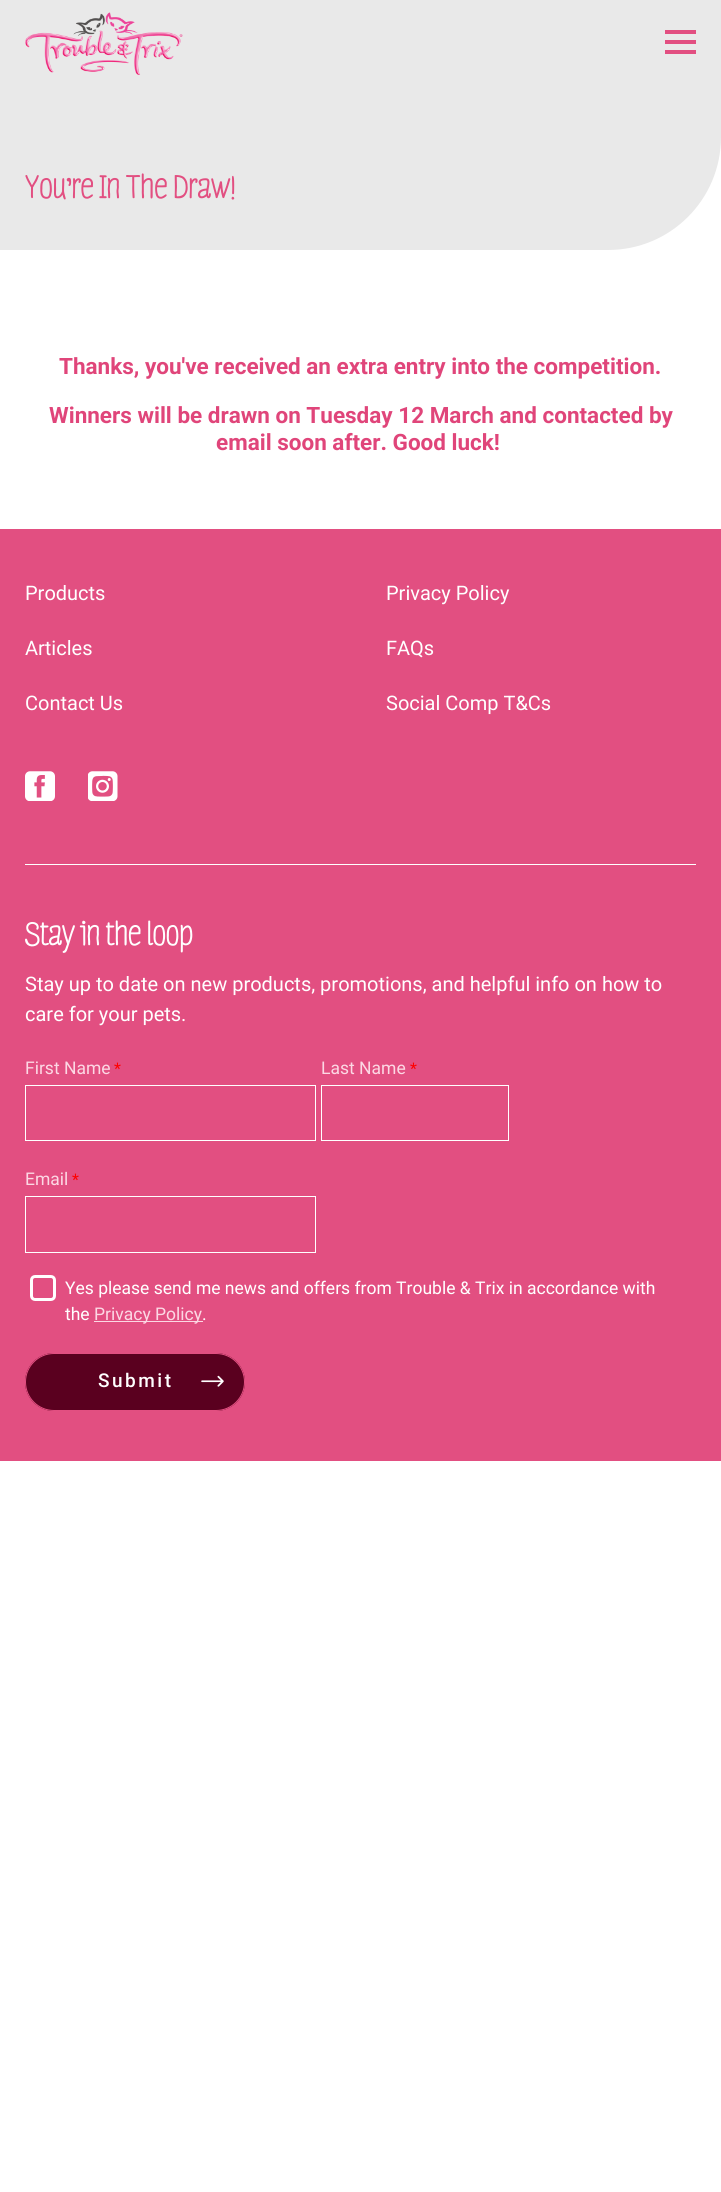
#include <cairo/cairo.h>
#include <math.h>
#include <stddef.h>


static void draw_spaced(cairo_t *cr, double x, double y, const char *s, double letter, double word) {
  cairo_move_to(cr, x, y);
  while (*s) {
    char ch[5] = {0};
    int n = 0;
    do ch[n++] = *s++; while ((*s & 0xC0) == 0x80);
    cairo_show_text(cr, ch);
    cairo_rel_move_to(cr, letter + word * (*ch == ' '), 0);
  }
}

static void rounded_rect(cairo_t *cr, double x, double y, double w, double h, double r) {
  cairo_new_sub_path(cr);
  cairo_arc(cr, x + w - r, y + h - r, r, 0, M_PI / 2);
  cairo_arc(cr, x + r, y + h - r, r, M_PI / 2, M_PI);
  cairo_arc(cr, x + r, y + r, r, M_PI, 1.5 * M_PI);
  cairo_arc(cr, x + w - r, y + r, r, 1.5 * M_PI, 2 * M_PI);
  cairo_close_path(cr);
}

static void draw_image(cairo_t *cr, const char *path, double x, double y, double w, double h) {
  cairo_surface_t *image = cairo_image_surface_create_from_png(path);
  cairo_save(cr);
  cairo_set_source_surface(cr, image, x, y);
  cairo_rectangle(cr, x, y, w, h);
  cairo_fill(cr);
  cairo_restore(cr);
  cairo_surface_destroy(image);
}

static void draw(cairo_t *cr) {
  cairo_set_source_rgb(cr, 1, 1, 1);
  cairo_paint(cr);
  cairo_set_source_rgb(cr, 233 / 255.0, 233 / 255.0, 233 / 255.0);
  cairo_new_path(cr);
  cairo_move_to(cr, 0, 0);
  cairo_line_to(cr, 721, 0);
  cairo_line_to(cr, 721, 137);
  cairo_curve_to(cr, 721, 199.5, 670.5, 250, 608, 250);
  cairo_line_to(cr, 0, 250);
  cairo_close_path(cr);
  cairo_fill(cr);
  draw_image(cr, "images/1.png", 25, 12, 158, 63);
  cairo_set_source_rgb(cr, 226 / 255.0, 79 / 255.0, 129 / 255.0);
  cairo_rectangle(cr, 665, 40, 31, 4);
  cairo_fill(cr);
  cairo_rectangle(cr, 665, 30, 31, 4);
  cairo_fill(cr);
  cairo_rectangle(cr, 665, 50, 31, 4);
  cairo_fill(cr);
  cairo_rectangle(cr, 0, 529, 721, 932);
  cairo_fill(cr);
  cairo_set_source_rgb(cr, 1, 1, 1);
  cairo_rectangle(cr, 25, 864, 671, 1);
  cairo_fill(cr);
  draw_image(cr, "images/2.png", 25, 771, 30, 30);
  draw_image(cr, "images/3.png", 88, 771, 30, 30);
  cairo_rectangle(cr, 25.5, 1085.5, 290, 55);
  cairo_set_line_width(cr, 1);
  cairo_stroke(cr);
  cairo_rectangle(cr, 321.5, 1085.5, 187, 55);
  cairo_stroke(cr);
  cairo_rectangle(cr, 25.5, 1196.5, 290, 56);
  cairo_stroke(cr);
  rounded_rect(cr, 31.5, 1276.5, 23, 23, 3.5);
  cairo_set_line_width(cr, 3);
  cairo_stroke(cr);
  cairo_set_source_rgb(cr, 252 / 255.0, 216 / 255.0, 228 / 255.0);
  cairo_rectangle(cr, 94, 1321, 109, 1);
  cairo_fill(cr);
  cairo_set_source_rgb(cr, 90 / 255.0, 0, 31 / 255.0);
  rounded_rect(cr, 25, 1353, 220, 58, 29);
  cairo_fill(cr);
  draw_image(cr, "images/4.png", 201, 1375, 23, 12);
  rounded_rect(cr, 25.5, 1353.5, 219, 57, 28.5);
  cairo_set_source_rgb(cr, 226 / 255.0, 79 / 255.0, 129 / 255.0);
  cairo_set_line_width(cr, 1);
  cairo_stroke(cr);
  cairo_select_font_face(cr, "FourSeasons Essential", CAIRO_FONT_SLANT_NORMAL, CAIRO_FONT_WEIGHT_BOLD);
  cairo_set_font_size(cr, 32.5);
  cairo_move_to(cr, 25, 198);
  cairo_show_text(cr, "You're In The Draw!");
  cairo_select_font_face(cr, "Roboto", CAIRO_FONT_SLANT_NORMAL, CAIRO_FONT_WEIGHT_BOLD);
  cairo_set_font_size(cr, 22.5);
  cairo_set_source_rgb(cr, 224 / 255.0, 69 / 255.0, 122 / 255.0);
  cairo_move_to(cr, 59, 374);
  cairo_show_text(cr, "Thanks, you've received an extra entry into the competition.");
  cairo_move_to(cr, 49, 423);
  cairo_show_text(cr, "Winners will be drawn on Tuesday 12 March and contacted by");
  cairo_move_to(cr, 216, 450);
  cairo_show_text(cr, "email soon after. Good luck!");
  cairo_select_font_face(cr, "Roboto", CAIRO_FONT_SLANT_NORMAL, CAIRO_FONT_WEIGHT_NORMAL);
  cairo_set_font_size(cr, 20);
  cairo_set_source_rgb(cr, 1, 1, 1);
  cairo_move_to(cr, 25, 600);
  cairo_show_text(cr, "Products");
  cairo_move_to(cr, 386, 600);
  cairo_show_text(cr, "Privacy Policy");
  cairo_move_to(cr, 25, 655);
  cairo_show_text(cr, "Articles");
  cairo_move_to(cr, 386, 655);
  cairo_show_text(cr, "FAQs");
  cairo_move_to(cr, 25, 710);
  cairo_show_text(cr, "Contact Us");
  cairo_move_to(cr, 386, 710);
  cairo_show_text(cr, "Social Comp T&Cs");
  cairo_select_font_face(cr, "FourSeasons Essential", CAIRO_FONT_SLANT_NORMAL, CAIRO_FONT_WEIGHT_BOLD);
  cairo_set_font_size(cr, 32.5);
  cairo_move_to(cr, 25, 945);
  cairo_show_text(cr, "Stay in the loop");
  cairo_select_font_face(cr, "Roboto", CAIRO_FONT_SLANT_NORMAL, CAIRO_FONT_WEIGHT_NORMAL);
  cairo_set_font_size(cr, 20);
  cairo_move_to(cr, 25, 991);
  cairo_show_text(cr, "Stay up to date on new products, promotions, and helpful info on how to");
  cairo_move_to(cr, 25, 1021);
  cairo_show_text(cr, "care for your pets.");
  cairo_set_font_size(cr, 17.5);
  cairo_set_source_rgb(cr, 252 / 255.0, 216 / 255.0, 228 / 255.0);
  cairo_move_to(cr, 25, 1074);
  cairo_show_text(cr, "First Name");
  cairo_set_font_size(cr, 16);
  cairo_set_source_rgb(cr, 1, 0, 0);
  cairo_move_to(cr, 114, 1074);
  cairo_show_text(cr, "*");
  cairo_set_font_size(cr, 17.5);
  cairo_set_source_rgb(cr, 252 / 255.0, 216 / 255.0, 228 / 255.0);
  cairo_move_to(cr, 321, 1074);
  cairo_show_text(cr, "Last Name");
  cairo_set_font_size(cr, 16);
  cairo_set_source_rgb(cr, 1, 0, 0);
  cairo_move_to(cr, 410, 1074);
  cairo_show_text(cr, "*");
  cairo_set_font_size(cr, 17.5);
  cairo_set_source_rgb(cr, 252 / 255.0, 216 / 255.0, 228 / 255.0);
  cairo_move_to(cr, 25, 1185);
  cairo_show_text(cr, "Email");
  cairo_set_font_size(cr, 16);
  cairo_set_source_rgb(cr, 1, 0, 0);
  cairo_move_to(cr, 72, 1185);
  cairo_show_text(cr, "*");
  cairo_set_font_size(cr, 17.5);
  cairo_set_source_rgb(cr, 1, 1, 1);
  cairo_move_to(cr, 65, 1294);
  cairo_show_text(cr, "Yes please send me news and offers from Trouble & Trix in accordance with");
  cairo_move_to(cr, 65, 1320);
  cairo_show_text(cr, "the");
  cairo_set_source_rgb(cr, 252 / 255.0, 216 / 255.0, 228 / 255.0);
  cairo_move_to(cr, 94, 1320);
  cairo_show_text(cr, "Privacy Policy");
  cairo_set_source_rgb(cr, 1, 1, 1);
  cairo_move_to(cr, 202, 1320);
  cairo_show_text(cr, ".");
  cairo_select_font_face(cr, "Roboto Medium", CAIRO_FONT_SLANT_NORMAL, CAIRO_FONT_WEIGHT_NORMAL);
  cairo_set_font_size(cr, 19);
  draw_spaced(cr, 98, 1387, "Submit", 2.5, 0);
}

int main(void) {
  cairo_surface_t *surface = cairo_image_surface_create(CAIRO_FORMAT_RGB24, 721, 2192);
  cairo_t *cr = cairo_create(surface);
  cairo_font_options_t *options = cairo_font_options_create();
  cairo_font_options_set_hint_metrics(options, CAIRO_HINT_METRICS_OFF);
  cairo_font_options_set_hint_style(options, CAIRO_HINT_STYLE_NONE);
  cairo_set_font_options(cr, options);
  cairo_set_miter_limit(cr, 4);
  draw(cr);
  cairo_surface_write_to_png(surface, "out.png");
  cairo_font_options_destroy(options);
  cairo_destroy(cr);
  cairo_surface_destroy(surface);
  return 0;
}
